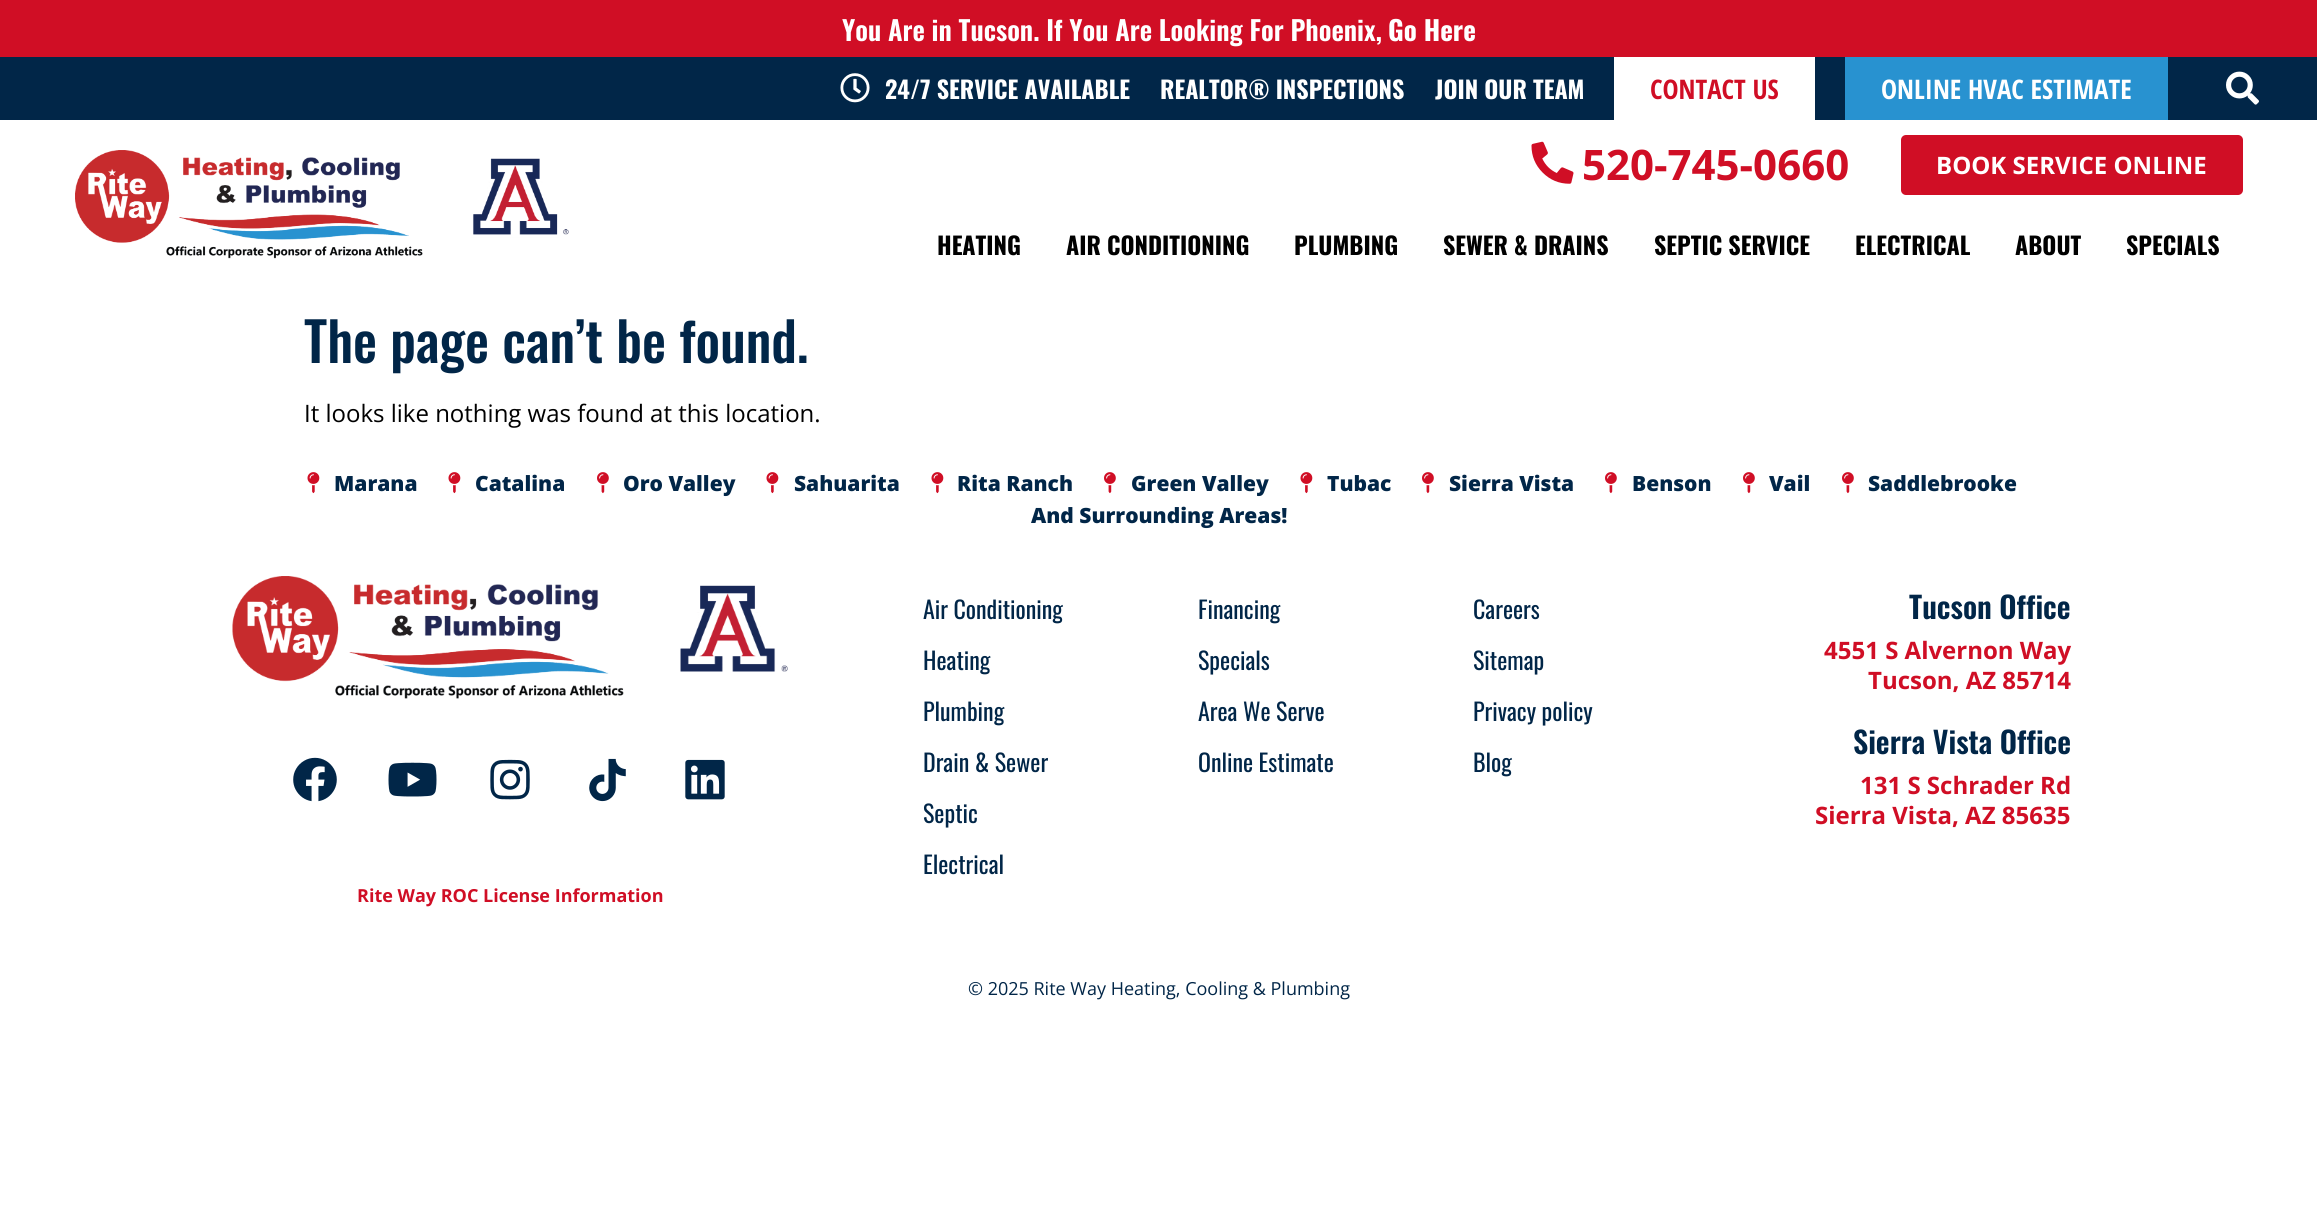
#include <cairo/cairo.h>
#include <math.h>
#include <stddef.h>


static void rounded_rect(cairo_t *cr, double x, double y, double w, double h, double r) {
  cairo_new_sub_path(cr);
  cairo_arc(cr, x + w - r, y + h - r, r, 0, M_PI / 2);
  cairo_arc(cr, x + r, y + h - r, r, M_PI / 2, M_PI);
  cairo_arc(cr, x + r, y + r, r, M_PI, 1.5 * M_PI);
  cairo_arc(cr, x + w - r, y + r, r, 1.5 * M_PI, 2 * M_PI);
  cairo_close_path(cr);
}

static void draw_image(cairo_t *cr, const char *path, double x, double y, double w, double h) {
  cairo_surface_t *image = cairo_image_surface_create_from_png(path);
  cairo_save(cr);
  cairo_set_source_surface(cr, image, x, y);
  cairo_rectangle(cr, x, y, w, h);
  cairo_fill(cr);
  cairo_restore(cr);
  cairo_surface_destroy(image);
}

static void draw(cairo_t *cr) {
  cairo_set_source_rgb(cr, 1, 1, 1);
  cairo_paint(cr);
  cairo_set_source_rgb(cr, 208 / 255.0, 14 / 255.0, 37 / 255.0);
  cairo_rectangle(cr, 0, 0, 2317, 57);
  cairo_fill(cr);
  cairo_set_source_rgb(cr, 1 / 255.0, 38 / 255.0, 72 / 255.0);
  cairo_rectangle(cr, 0, 57, 2317, 63);
  cairo_fill(cr);
  draw_image(cr, "images/1.png", 840, 73, 30, 30);
  cairo_set_source_rgb(cr, 1, 1, 1);
  cairo_rectangle(cr, 1614, 57, 201, 63);
  cairo_fill(cr);
  cairo_set_source_rgb(cr, 40 / 255.0, 146 / 255.0, 208 / 255.0);
  cairo_rectangle(cr, 1845, 57, 323, 63);
  cairo_fill(cr);
  draw_image(cr, "images/2.png", 2226, 71, 33, 34);
  draw_image(cr, "images/3.png", 75, 150, 494, 109);
  draw_image(cr, "images/4.png", 1531, 141, 43, 43);
  cairo_set_source_rgb(cr, 208 / 255.0, 14 / 255.0, 37 / 255.0);
  rounded_rect(cr, 1901, 135, 342, 60, 5);
  cairo_fill(cr);
  draw_image(cr, "images/5.png", 307, 472, 13, 22);
  draw_image(cr, "images/5.png", 448, 472, 13, 22);
  draw_image(cr, "images/6.png", 597, 472, 12, 22);
  draw_image(cr, "images/5.png", 766, 472, 13, 22);
  draw_image(cr, "images/5.png", 931, 472, 13, 22);
  draw_image(cr, "images/6.png", 1104, 472, 12, 22);
  draw_image(cr, "images/5.png", 1300, 472, 13, 22);
  draw_image(cr, "images/6.png", 1422, 472, 12, 22);
  draw_image(cr, "images/6.png", 1605, 472, 12, 22);
  draw_image(cr, "images/6.png", 1743, 472, 12, 22);
  draw_image(cr, "images/6.png", 1842, 472, 12, 22);
  draw_image(cr, "images/7.png", 232, 576, 556, 123);
  draw_image(cr, "images/8.png", 293, 757, 44, 45);
  draw_image(cr, "images/9.png", 388, 762, 49, 35);
  draw_image(cr, "images/10.png", 490, 759, 40, 41);
  draw_image(cr, "images/11.png", 589, 758, 37, 44);
  draw_image(cr, "images/12.png", 685, 759, 40, 41);
  cairo_select_font_face(cr, "Oswald SemiBold", CAIRO_FONT_SLANT_NORMAL, CAIRO_FONT_WEIGHT_NORMAL);
  cairo_set_font_size(cr, 27);
  cairo_set_source_rgb(cr, 1, 1, 1);
  cairo_move_to(cr, 842, 41);
  cairo_show_text(cr, "You Are in Tucson. If You Are Looking For Phoenix,");
  cairo_select_font_face(cr, "Oswald", CAIRO_FONT_SLANT_NORMAL, CAIRO_FONT_WEIGHT_BOLD);
  cairo_move_to(cr, 1388, 41);
  cairo_show_text(cr, "Go Here");
  cairo_set_font_size(cr, 24);
  cairo_move_to(cr, 885, 99);
  cairo_show_text(cr, "24/7 SERVICE AVAILABLE");
  cairo_move_to(cr, 1160, 99);
  cairo_show_text(cr, "REALTOR® INSPECTIONS");
  cairo_move_to(cr, 1435, 99);
  cairo_show_text(cr, "JOIN OUR TEAM");
  cairo_select_font_face(cr, "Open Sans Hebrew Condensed", CAIRO_FONT_SLANT_NORMAL, CAIRO_FONT_WEIGHT_BOLD);
  cairo_set_font_size(cr, 27);
  cairo_set_source_rgb(cr, 208 / 255.0, 14 / 255.0, 37 / 255.0);
  cairo_move_to(cr, 1650, 99);
  cairo_show_text(cr, "CONTACT US");
  cairo_set_source_rgb(cr, 1, 1, 1);
  cairo_move_to(cr, 1881, 99);
  cairo_show_text(cr, "ONLINE HVAC ESTIMATE");
  cairo_select_font_face(cr, "Open Sans", CAIRO_FONT_SLANT_NORMAL, CAIRO_FONT_WEIGHT_BOLD);
  cairo_set_font_size(cr, 42);
  cairo_set_source_rgb(cr, 208 / 255.0, 14 / 255.0, 37 / 255.0);
  cairo_move_to(cr, 1582, 180);
  cairo_show_text(cr, "520-745-0660");
  cairo_set_font_size(cr, 24);
  cairo_set_source_rgb(cr, 1, 1, 1);
  cairo_move_to(cr, 1936, 174);
  cairo_show_text(cr, "BOOK SERVICE ONLINE");
  cairo_select_font_face(cr, "Oswald", CAIRO_FONT_SLANT_NORMAL, CAIRO_FONT_WEIGHT_BOLD);
  cairo_set_source_rgb(cr, 0, 0, 0);
  cairo_move_to(cr, 937, 255);
  cairo_show_text(cr, "HEATING");
  cairo_move_to(cr, 1066, 255);
  cairo_show_text(cr, "AIR CONDITIONING");
  cairo_move_to(cr, 1294, 255);
  cairo_show_text(cr, "PLUMBING");
  cairo_move_to(cr, 1443, 255);
  cairo_show_text(cr, "SEWER & DRAINS");
  cairo_move_to(cr, 1654, 255);
  cairo_show_text(cr, "SEPTIC SERVICE");
  cairo_move_to(cr, 1855, 255);
  cairo_show_text(cr, "ELECTRICAL");
  cairo_move_to(cr, 2015, 255);
  cairo_show_text(cr, "ABOUT");
  cairo_move_to(cr, 2126, 255);
  cairo_show_text(cr, "SPECIALS");
  cairo_select_font_face(cr, "Oswald Medium", CAIRO_FONT_SLANT_NORMAL, CAIRO_FONT_WEIGHT_NORMAL);
  cairo_set_font_size(cr, 54);
  cairo_set_source_rgb(cr, 1 / 255.0, 38 / 255.0, 72 / 255.0);
  cairo_move_to(cr, 304, 363);
  cairo_show_text(cr, "The page can’t be found.");
  cairo_select_font_face(cr, "Open Sans", CAIRO_FONT_SLANT_NORMAL, CAIRO_FONT_WEIGHT_NORMAL);
  cairo_set_font_size(cr, 24);
  cairo_set_source_rgb(cr, 0, 0, 0);
  cairo_move_to(cr, 304, 422);
  cairo_show_text(cr, "It looks like nothing was found at this location.");
  cairo_select_font_face(cr, "Open Sans ExtraBold", CAIRO_FONT_SLANT_NORMAL, CAIRO_FONT_WEIGHT_NORMAL);
  cairo_set_font_size(cr, 21);
  cairo_set_source_rgb(cr, 1 / 255.0, 38 / 255.0, 72 / 255.0);
  cairo_move_to(cr, 334, 491);
  cairo_show_text(cr, "Marana");
  cairo_move_to(cr, 475, 491);
  cairo_show_text(cr, "Catalina");
  cairo_move_to(cr, 623, 491);
  cairo_show_text(cr, "Oro Valley");
  cairo_move_to(cr, 794, 491);
  cairo_show_text(cr, "Sahuarita");
  cairo_move_to(cr, 957, 491);
  cairo_show_text(cr, "Rita Ranch");
  cairo_move_to(cr, 1131, 491);
  cairo_show_text(cr, "Green Valley");
  cairo_move_to(cr, 1327, 491);
  cairo_show_text(cr, "Tubac");
  cairo_move_to(cr, 1449, 491);
  cairo_show_text(cr, "Sierra Vista");
  cairo_move_to(cr, 1632, 491);
  cairo_show_text(cr, "Benson");
  cairo_move_to(cr, 1769, 491);
  cairo_show_text(cr, "Vail");
  cairo_move_to(cr, 1868, 491);
  cairo_show_text(cr, "Saddlebrooke");
  cairo_move_to(cr, 1031, 523);
  cairo_show_text(cr, "And Surrounding Areas!");
  cairo_select_font_face(cr, "Oswald", CAIRO_FONT_SLANT_NORMAL, CAIRO_FONT_WEIGHT_NORMAL);
  cairo_set_font_size(cr, 24);
  cairo_move_to(cr, 923, 619);
  cairo_show_text(cr, "Air Conditioning");
  cairo_move_to(cr, 923, 670);
  cairo_show_text(cr, "Heating");
  cairo_move_to(cr, 923, 721);
  cairo_show_text(cr, "Plumbing");
  cairo_move_to(cr, 923, 772);
  cairo_show_text(cr, "Drain & Sewer");
  cairo_move_to(cr, 923, 823);
  cairo_show_text(cr, "Septic");
  cairo_move_to(cr, 923, 874);
  cairo_show_text(cr, "Electrical");
  cairo_move_to(cr, 1198, 619);
  cairo_show_text(cr, "Financing");
  cairo_move_to(cr, 1198, 670);
  cairo_show_text(cr, "Specials");
  cairo_move_to(cr, 1198, 721);
  cairo_show_text(cr, "Area We Serve");
  cairo_move_to(cr, 1198, 772);
  cairo_show_text(cr, "Online Estimate");
  cairo_move_to(cr, 1473, 619);
  cairo_show_text(cr, "Careers");
  cairo_move_to(cr, 1473, 670);
  cairo_show_text(cr, "Sitemap");
  cairo_move_to(cr, 1473, 721);
  cairo_show_text(cr, "Privacy policy");
  cairo_move_to(cr, 1473, 772);
  cairo_show_text(cr, "Blog");
  cairo_select_font_face(cr, "Oswald SemiBold", CAIRO_FONT_SLANT_NORMAL, CAIRO_FONT_WEIGHT_NORMAL);
  cairo_set_font_size(cr, 30);
  cairo_move_to(cr, 1909, 619);
  cairo_show_text(cr, "Tucson Office");
  cairo_select_font_face(cr, "Open Sans", CAIRO_FONT_SLANT_NORMAL, CAIRO_FONT_WEIGHT_BOLD);
  cairo_set_font_size(cr, 24);
  cairo_set_source_rgb(cr, 208 / 255.0, 14 / 255.0, 37 / 255.0);
  cairo_move_to(cr, 1824, 659);
  cairo_show_text(cr, "4551 S Alvernon Way");
  cairo_move_to(cr, 1868, 689);
  cairo_show_text(cr, "Tucson, AZ 85714");
  cairo_select_font_face(cr, "Oswald SemiBold", CAIRO_FONT_SLANT_NORMAL, CAIRO_FONT_WEIGHT_NORMAL);
  cairo_set_font_size(cr, 30);
  cairo_set_source_rgb(cr, 1 / 255.0, 38 / 255.0, 72 / 255.0);
  cairo_move_to(cr, 1853, 754);
  cairo_show_text(cr, "Sierra Vista Office");
  cairo_select_font_face(cr, "Open Sans", CAIRO_FONT_SLANT_NORMAL, CAIRO_FONT_WEIGHT_BOLD);
  cairo_set_font_size(cr, 24);
  cairo_set_source_rgb(cr, 208 / 255.0, 14 / 255.0, 37 / 255.0);
  cairo_move_to(cr, 1860, 794);
  cairo_show_text(cr, "131 S Schrader Rd");
  cairo_move_to(cr, 1815, 824);
  cairo_show_text(cr, "Sierra Vista, AZ 85635");
  cairo_set_font_size(cr, 18);
  cairo_move_to(cr, 357, 902);
  cairo_show_text(cr, "Rite Way ROC License Information");
  cairo_select_font_face(cr, "Open Sans", CAIRO_FONT_SLANT_NORMAL, CAIRO_FONT_WEIGHT_NORMAL);
  cairo_set_source_rgb(cr, 1 / 255.0, 38 / 255.0, 72 / 255.0);
  cairo_move_to(cr, 968, 995);
  cairo_show_text(cr, "© 2025 Rite Way Heating, Cooling & Plumbing");
}

int main(void) {
  cairo_surface_t *surface = cairo_image_surface_create(CAIRO_FORMAT_RGB24, 2317, 1232);
  cairo_t *cr = cairo_create(surface);
  cairo_font_options_t *options = cairo_font_options_create();
  cairo_font_options_set_hint_metrics(options, CAIRO_HINT_METRICS_OFF);
  cairo_font_options_set_hint_style(options, CAIRO_HINT_STYLE_NONE);
  cairo_set_font_options(cr, options);
  cairo_set_miter_limit(cr, 4);
  draw(cr);
  cairo_surface_write_to_png(surface, "out.png");
  cairo_font_options_destroy(options);
  cairo_destroy(cr);
  cairo_surface_destroy(surface);
  return 0;
}
